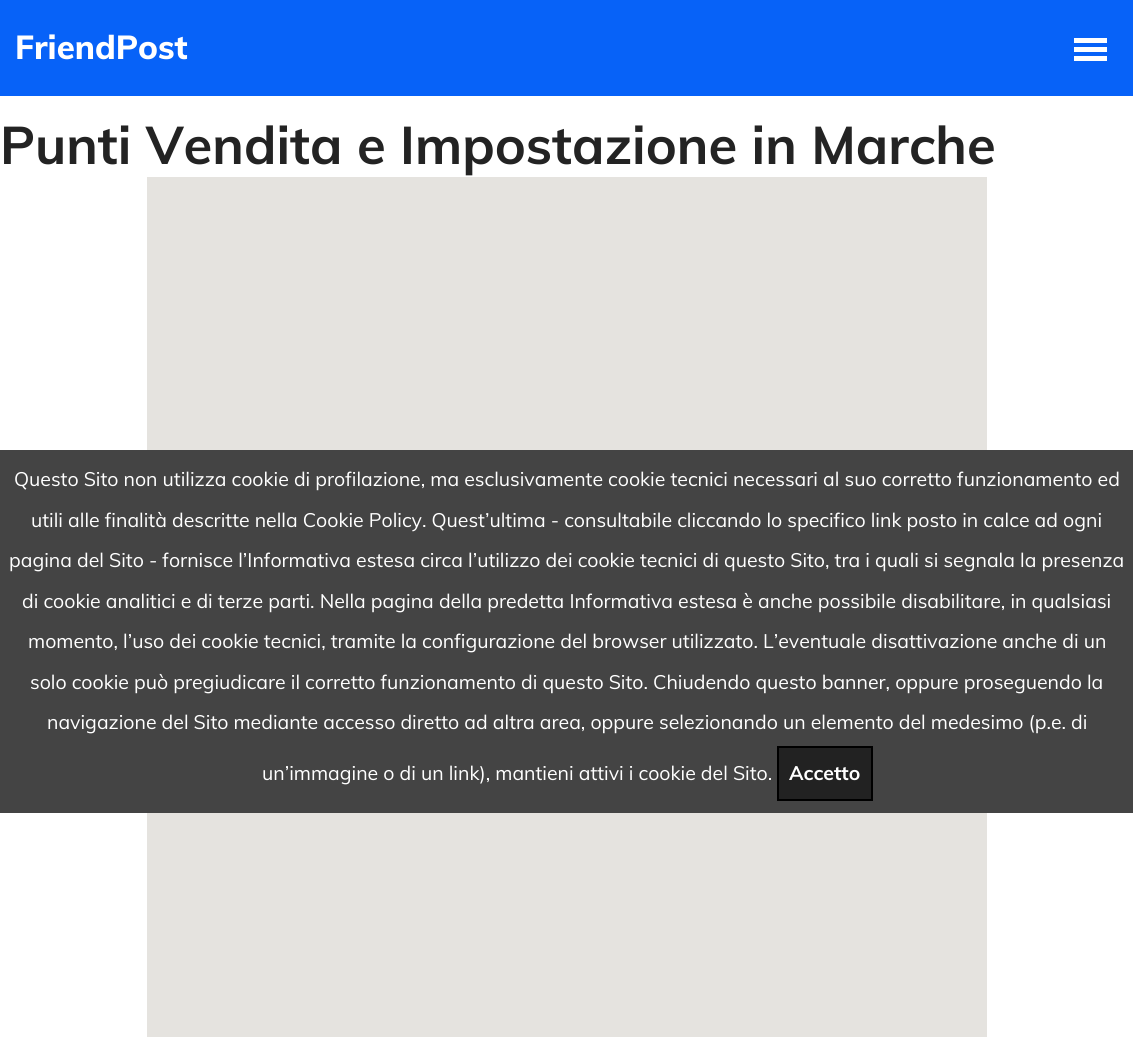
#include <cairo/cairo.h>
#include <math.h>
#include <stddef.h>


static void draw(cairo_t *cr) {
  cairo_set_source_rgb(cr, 1, 1, 1);
  cairo_paint(cr);
  cairo_set_source_rgb(cr, 7 / 255.0, 98 / 255.0, 248 / 255.0);
  cairo_rectangle(cr, 0, 0, 1133, 96);
  cairo_fill(cr);
  cairo_set_source_rgb(cr, 1, 1, 1);
  cairo_rectangle(cr, 1074, 38, 33, 5);
  cairo_fill(cr);
  cairo_rectangle(cr, 1074, 47, 33, 5);
  cairo_fill(cr);
  cairo_rectangle(cr, 1074, 56, 33, 5);
  cairo_fill(cr);
  cairo_set_source_rgb(cr, 229 / 255.0, 227 / 255.0, 223 / 255.0);
  cairo_rectangle(cr, 147, 177, 840, 860);
  cairo_fill(cr);
  cairo_set_source_rgb(cr, 68 / 255.0, 68 / 255.0, 68 / 255.0);
  cairo_rectangle(cr, 0, 450, 1133, 363);
  cairo_fill(cr);
  cairo_set_source_rgb(cr, 34 / 255.0, 34 / 255.0, 34 / 255.0);
  cairo_rectangle(cr, 778, 747, 94, 53);
  cairo_fill_preserve(cr);
  cairo_set_source_rgb(cr, 0, 0, 0);
  cairo_stroke(cr);
  cairo_select_font_face(cr, "Muli ExtraBold", CAIRO_FONT_SLANT_NORMAL, CAIRO_FONT_WEIGHT_NORMAL);
  cairo_set_font_size(cr, 33);
  cairo_set_source_rgb(cr, 1, 1, 1);
  cairo_move_to(cr, 15, 59);
  cairo_show_text(cr, "FriendPost");
  cairo_select_font_face(cr, "Muli", CAIRO_FONT_SLANT_NORMAL, CAIRO_FONT_WEIGHT_BOLD);
  cairo_set_font_size(cr, 52.5);
  cairo_set_source_rgb(cr, 35 / 255.0, 35 / 255.0, 35 / 255.0);
  cairo_move_to(cr, 0, 164);
  cairo_show_text(cr, "Punti Vendita e Impostazione in Marche");
  cairo_select_font_face(cr, "Muli", CAIRO_FONT_SLANT_NORMAL, CAIRO_FONT_WEIGHT_NORMAL);
  cairo_set_font_size(cr, 19.5);
  cairo_set_source_rgb(cr, 1, 1, 1);
  cairo_move_to(cr, 14, 486);
  cairo_show_text(cr, "Questo Sito non utilizza cookie di profilazione, ma esclusivamente cookie tecnici necessari al suo corretto funzionamento ed");
  cairo_move_to(cr, 31, 527);
  cairo_show_text(cr, "utili alle finalità descritte nella Cookie Policy. Quest’ultima - consultabile cliccando lo specifico link posto in calce ad ogni");
  cairo_move_to(cr, 9, 567);
  cairo_show_text(cr, "pagina del Sito - fornisce l’Informativa estesa circa l’utilizzo dei cookie tecnici di questo Sito, tra i quali si segnala la presenza");
  cairo_move_to(cr, 22, 608);
  cairo_show_text(cr, "di cookie analitici e di terze parti. Nella pagina della predetta Informativa estesa è anche possibile disabilitare, in qualsiasi");
  cairo_move_to(cr, 28, 648);
  cairo_show_text(cr, "momento, l’uso dei cookie tecnici, tramite la configurazione del browser utilizzato. L’eventuale disattivazione anche di un");
  cairo_move_to(cr, 30, 689);
  cairo_show_text(cr, "solo cookie può pregiudicare il corretto funzionamento di questo Sito. Chiudendo questo banner, oppure proseguendo la");
  cairo_move_to(cr, 47, 729);
  cairo_show_text(cr, "navigazione del Sito mediante accesso diretto ad altra area, oppure selezionando un elemento del medesimo (p.e. di");
  cairo_move_to(cr, 262, 780);
  cairo_show_text(cr, "un’immagine o di un link), mantieni attivi i cookie del Sito.");
  cairo_select_font_face(cr, "Muli", CAIRO_FONT_SLANT_NORMAL, CAIRO_FONT_WEIGHT_BOLD);
  cairo_move_to(cr, 789, 780);
  cairo_show_text(cr, "Accetto");
}

int main(void) {
  cairo_surface_t *surface = cairo_image_surface_create(CAIRO_FORMAT_RGB24, 1133, 1037);
  cairo_t *cr = cairo_create(surface);
  cairo_font_options_t *options = cairo_font_options_create();
  cairo_font_options_set_hint_metrics(options, CAIRO_HINT_METRICS_OFF);
  cairo_font_options_set_hint_style(options, CAIRO_HINT_STYLE_NONE);
  cairo_set_font_options(cr, options);
  cairo_set_miter_limit(cr, 4);
  draw(cr);
  cairo_surface_write_to_png(surface, "out.png");
  cairo_font_options_destroy(options);
  cairo_destroy(cr);
  cairo_surface_destroy(surface);
  return 0;
}
